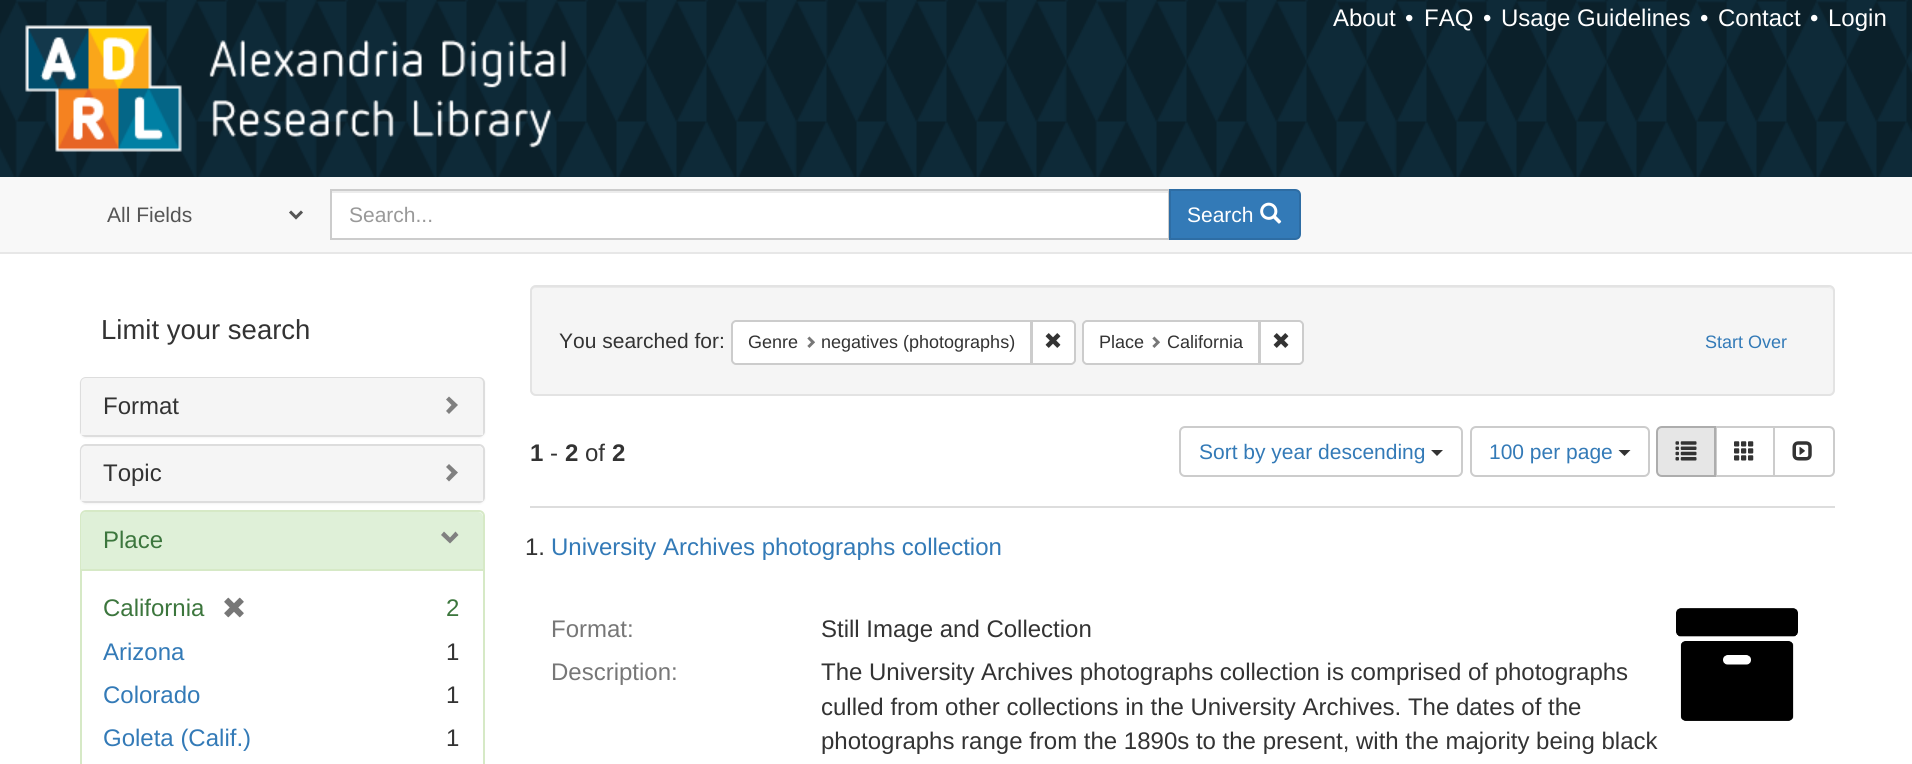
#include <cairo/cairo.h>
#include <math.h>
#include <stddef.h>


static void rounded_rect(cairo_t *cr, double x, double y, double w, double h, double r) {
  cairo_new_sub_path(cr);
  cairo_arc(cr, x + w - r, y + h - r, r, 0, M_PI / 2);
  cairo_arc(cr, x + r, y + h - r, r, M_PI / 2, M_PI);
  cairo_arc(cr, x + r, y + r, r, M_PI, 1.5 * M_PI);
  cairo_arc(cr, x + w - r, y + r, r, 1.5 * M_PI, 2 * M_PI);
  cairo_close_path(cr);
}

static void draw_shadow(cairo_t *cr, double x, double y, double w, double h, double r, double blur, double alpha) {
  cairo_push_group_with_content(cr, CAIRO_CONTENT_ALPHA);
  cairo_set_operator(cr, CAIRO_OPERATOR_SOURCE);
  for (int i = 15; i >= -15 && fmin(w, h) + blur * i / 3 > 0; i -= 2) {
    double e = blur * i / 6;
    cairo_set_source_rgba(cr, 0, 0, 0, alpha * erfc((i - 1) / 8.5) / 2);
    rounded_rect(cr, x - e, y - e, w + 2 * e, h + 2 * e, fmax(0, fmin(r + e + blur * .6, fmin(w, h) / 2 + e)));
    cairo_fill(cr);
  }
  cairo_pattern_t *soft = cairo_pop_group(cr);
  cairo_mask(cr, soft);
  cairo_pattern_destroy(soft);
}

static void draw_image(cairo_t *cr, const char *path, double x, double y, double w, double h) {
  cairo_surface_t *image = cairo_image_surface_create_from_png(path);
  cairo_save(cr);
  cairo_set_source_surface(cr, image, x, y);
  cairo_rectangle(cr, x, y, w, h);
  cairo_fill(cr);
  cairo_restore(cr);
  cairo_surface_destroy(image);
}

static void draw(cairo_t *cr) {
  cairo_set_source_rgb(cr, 1, 1, 1);
  cairo_paint(cr);
  draw_image(cr, "images/1.png", 0, 0, 1912, 177);
  draw_image(cr, "images/2.png", 25, 25, 541, 127);
  cairo_set_source_rgb(cr, 248 / 255.0, 248 / 255.0, 248 / 255.0);
  cairo_rectangle(cr, 0, 177, 1912, 75);
  cairo_fill(cr);
  cairo_set_source_rgb(cr, 231 / 255.0, 231 / 255.0, 231 / 255.0);
  cairo_rectangle(cr, 0, 252, 1912, 2);
  cairo_fill(cr);
  cairo_new_path(cr);
  cairo_move_to(cr, 290, 211.5);
  cairo_line_to(cr, 296, 217.5);
  cairo_line_to(cr, 302, 211.5);
  cairo_set_source_rgb(cr, 85 / 255.0, 85 / 255.0, 85 / 255.0);
  cairo_set_line_width(cr, 3);
  cairo_stroke(cr);
  cairo_set_source_rgb(cr, 1, 1, 1);
  cairo_rectangle(cr, 332, 193, 836, 45);
  cairo_fill(cr);
  cairo_set_source_rgb(cr, 236 / 255.0, 236 / 255.0, 236 / 255.0);
  cairo_rectangle(cr, 332, 191, 837, 2);
  cairo_fill(cr);
  cairo_rectangle(cr, 331, 190, 838, 49);
  cairo_set_source_rgb(cr, 204 / 255.0, 204 / 255.0, 204 / 255.0);
  cairo_set_line_width(cr, 2);
  cairo_stroke(cr);
  cairo_set_source_rgb(cr, 51 / 255.0, 122 / 255.0, 183 / 255.0);
  cairo_new_path(cr);
  cairo_move_to(cr, 1170, 190);
  cairo_line_to(cr, 1295, 190);
  cairo_curve_to(cr, 1298, 190, 1300, 192, 1300, 195);
  cairo_line_to(cr, 1300, 234);
  cairo_curve_to(cr, 1300, 237, 1298, 239, 1295, 239);
  cairo_line_to(cr, 1170, 239);
  cairo_close_path(cr);
  cairo_fill_preserve(cr);
  cairo_set_source_rgb(cr, 46 / 255.0, 109 / 255.0, 164 / 255.0);
  cairo_stroke(cr);
  draw_image(cr, "images/3.png", 1260, 202, 22, 22);
  cairo_set_source_rgb(cr, 0, 0, 0);
  draw_shadow(cr, 80, 378, 405, 60, 6, 1, 0.05);
  rounded_rect(cr, 81, 378, 403, 58, 5);
  cairo_set_source_rgb(cr, 221 / 255.0, 221 / 255.0, 221 / 255.0);
  cairo_stroke(cr);
  cairo_set_source_rgb(cr, 245 / 255.0, 245 / 255.0, 245 / 255.0);
  cairo_new_path(cr);
  cairo_move_to(cr, 86, 378);
  cairo_line_to(cr, 478, 378);
  cairo_curve_to(cr, 481, 378, 483, 380, 483, 383);
  cairo_line_to(cr, 483, 435);
  cairo_line_to(cr, 81, 435);
  cairo_line_to(cr, 81, 383);
  cairo_curve_to(cr, 81, 380, 83, 378, 86, 378);
  cairo_close_path(cr);
  cairo_fill(cr);
  cairo_set_source_rgb(cr, 128 / 255.0, 128 / 255.0, 128 / 255.0);
  cairo_new_path(cr);
  cairo_move_to(cr, 458, 405);
  cairo_line_to(cr, 449, 414);
  cairo_line_to(cr, 446, 411);
  cairo_line_to(cr, 451.5, 405);
  cairo_line_to(cr, 446, 399.5);
  cairo_line_to(cr, 449, 396.5);
  cairo_close_path(cr);
  cairo_fill(cr);
  cairo_set_source_rgb(cr, 0, 0, 0);
  draw_shadow(cr, 80, 446, 405, 58, 6, 1, 0.05);
  cairo_set_source_rgb(cr, 1, 1, 1);
  rounded_rect(cr, 81, 445, 403, 57, 5);
  cairo_fill_preserve(cr);
  cairo_set_source_rgb(cr, 221 / 255.0, 221 / 255.0, 221 / 255.0);
  cairo_stroke(cr);
  cairo_set_source_rgb(cr, 245 / 255.0, 245 / 255.0, 245 / 255.0);
  cairo_new_path(cr);
  cairo_move_to(cr, 86, 446);
  cairo_line_to(cr, 478, 446);
  cairo_curve_to(cr, 481, 446, 483, 448, 483, 451);
  cairo_line_to(cr, 483, 501);
  cairo_line_to(cr, 81, 501);
  cairo_line_to(cr, 81, 451);
  cairo_curve_to(cr, 81, 448, 83, 446, 86, 446);
  cairo_close_path(cr);
  cairo_fill(cr);
  cairo_set_source_rgb(cr, 128 / 255.0, 128 / 255.0, 128 / 255.0);
  cairo_new_path(cr);
  cairo_move_to(cr, 458, 472.5);
  cairo_line_to(cr, 449, 481.5);
  cairo_line_to(cr, 446, 478.5);
  cairo_line_to(cr, 451.5, 472.5);
  cairo_line_to(cr, 446, 467);
  cairo_line_to(cr, 449, 464);
  cairo_close_path(cr);
  cairo_fill(cr);
  rounded_rect(cr, 81, 511, 403, 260, 5);
  cairo_set_source_rgb(cr, 214 / 255.0, 233 / 255.0, 198 / 255.0);
  cairo_stroke(cr);
  cairo_set_source_rgb(cr, 223 / 255.0, 240 / 255.0, 216 / 255.0);
  cairo_new_path(cr);
  cairo_move_to(cr, 86, 512);
  cairo_line_to(cr, 478, 512);
  cairo_curve_to(cr, 481, 512, 483, 514, 483, 517);
  cairo_line_to(cr, 483, 569);
  cairo_line_to(cr, 81, 569);
  cairo_line_to(cr, 81, 517);
  cairo_curve_to(cr, 81, 514, 83, 512, 86, 512);
  cairo_close_path(cr);
  cairo_fill(cr);
  cairo_set_source_rgb(cr, 128 / 255.0, 128 / 255.0, 128 / 255.0);
  cairo_new_path(cr);
  cairo_move_to(cr, 458.5, 535);
  cairo_line_to(cr, 450, 543.5);
  cairo_line_to(cr, 441, 535);
  cairo_line_to(cr, 444, 531.5);
  cairo_line_to(cr, 450, 537.5);
  cairo_line_to(cr, 455.5, 531.5);
  cairo_close_path(cr);
  cairo_fill(cr);
  cairo_set_source_rgb(cr, 214 / 255.0, 233 / 255.0, 198 / 255.0);
  cairo_rectangle(cr, 81, 569, 402, 2);
  cairo_fill(cr);
  draw_image(cr, "images/4.png", 224, 597, 20, 21);
  cairo_set_source_rgb(cr, 245 / 255.0, 245 / 255.0, 245 / 255.0);
  rounded_rect(cr, 530, 285, 1305, 111, 6);
  cairo_fill(cr);
  cairo_set_source_rgb(cr, 233 / 255.0, 233 / 255.0, 233 / 255.0);
  cairo_new_path(cr);
  cairo_move_to(cr, 536, 288);
  cairo_line_to(cr, 1828, 288);
  cairo_curve_to(cr, 1831, 288, 1833, 290, 1833, 292);
  cairo_curve_to(cr, 1833, 289, 1831, 287, 1828, 287);
  cairo_line_to(cr, 536, 287);
  cairo_curve_to(cr, 533, 287, 531, 289, 531, 292);
  cairo_curve_to(cr, 531, 290, 533, 288, 536, 288);
  cairo_close_path(cr);
  cairo_fill(cr);
  rounded_rect(cr, 531, 286, 1303, 109, 5);
  cairo_set_source_rgb(cr, 227 / 255.0, 227 / 255.0, 227 / 255.0);
  cairo_stroke(cr);
  cairo_set_source_rgb(cr, 1, 1, 1);
  cairo_new_path(cr);
  cairo_move_to(cr, 736, 321);
  cairo_line_to(cr, 1031, 321);
  cairo_line_to(cr, 1031, 364);
  cairo_line_to(cr, 736, 364);
  cairo_curve_to(cr, 734, 364, 732, 362, 732, 360);
  cairo_line_to(cr, 732, 325);
  cairo_curve_to(cr, 732, 323, 734, 321, 736, 321);
  cairo_close_path(cr);
  cairo_fill_preserve(cr);
  cairo_set_source_rgb(cr, 204 / 255.0, 204 / 255.0, 204 / 255.0);
  cairo_stroke(cr);
  draw_image(cr, "images/5.png", 807, 336, 8, 12);
  cairo_set_source_rgb(cr, 1, 1, 1);
  cairo_new_path(cr);
  cairo_move_to(cr, 1032, 321);
  cairo_line_to(cr, 1071, 321);
  cairo_curve_to(cr, 1073, 321, 1075, 323, 1075, 325);
  cairo_line_to(cr, 1075, 360);
  cairo_curve_to(cr, 1075, 362, 1073, 364, 1071, 364);
  cairo_line_to(cr, 1032, 364);
  cairo_close_path(cr);
  cairo_fill_preserve(cr);
  cairo_set_source_rgb(cr, 204 / 255.0, 204 / 255.0, 204 / 255.0);
  cairo_stroke(cr);
  draw_image(cr, "images/6.png", 1045, 333, 16, 15);
  cairo_set_source_rgb(cr, 1, 1, 1);
  cairo_new_path(cr);
  cairo_move_to(cr, 1087, 321);
  cairo_line_to(cr, 1259, 321);
  cairo_line_to(cr, 1259, 364);
  cairo_line_to(cr, 1087, 364);
  cairo_curve_to(cr, 1085, 364, 1083, 362, 1083, 360);
  cairo_line_to(cr, 1083, 325);
  cairo_curve_to(cr, 1083, 323, 1085, 321, 1087, 321);
  cairo_close_path(cr);
  cairo_fill_preserve(cr);
  cairo_set_source_rgb(cr, 204 / 255.0, 204 / 255.0, 204 / 255.0);
  cairo_stroke(cr);
  draw_image(cr, "images/5.png", 1152, 336, 8, 12);
  cairo_set_source_rgb(cr, 1, 1, 1);
  cairo_new_path(cr);
  cairo_move_to(cr, 1260, 321);
  cairo_line_to(cr, 1299, 321);
  cairo_curve_to(cr, 1301, 321, 1303, 323, 1303, 325);
  cairo_line_to(cr, 1303, 360);
  cairo_curve_to(cr, 1303, 362, 1301, 364, 1299, 364);
  cairo_line_to(cr, 1260, 364);
  cairo_close_path(cr);
  cairo_fill_preserve(cr);
  cairo_set_source_rgb(cr, 204 / 255.0, 204 / 255.0, 204 / 255.0);
  cairo_stroke(cr);
  draw_image(cr, "images/6.png", 1273, 333, 16, 15);
  cairo_set_source_rgb(cr, 221 / 255.0, 221 / 255.0, 221 / 255.0);
  cairo_rectangle(cr, 530, 506, 1305, 2);
  cairo_fill(cr);
  rounded_rect(cr, 1180, 427, 282, 49, 5);
  cairo_set_source_rgb(cr, 204 / 255.0, 204 / 255.0, 204 / 255.0);
  cairo_stroke(cr);
  cairo_set_source_rgb(cr, 51 / 255.0, 51 / 255.0, 51 / 255.0);
  cairo_new_path(cr);
  cairo_move_to(cr, 1431, 450);
  cairo_line_to(cr, 1443, 450);
  cairo_line_to(cr, 1437, 456);
  cairo_close_path(cr);
  cairo_fill(cr);
  rounded_rect(cr, 1471, 427, 178, 49, 5);
  cairo_set_source_rgb(cr, 204 / 255.0, 204 / 255.0, 204 / 255.0);
  cairo_stroke(cr);
  cairo_set_source_rgb(cr, 51 / 255.0, 51 / 255.0, 51 / 255.0);
  cairo_new_path(cr);
  cairo_move_to(cr, 1618.5, 450);
  cairo_line_to(cr, 1630.5, 450);
  cairo_line_to(cr, 1624.5, 456);
  cairo_close_path(cr);
  cairo_fill(cr);
  cairo_rectangle(cr, 1716, 427, 58, 49);
  cairo_set_source_rgb(cr, 204 / 255.0, 204 / 255.0, 204 / 255.0);
  cairo_stroke(cr);
  cairo_set_source_rgb(cr, 230 / 255.0, 230 / 255.0, 230 / 255.0);
  cairo_new_path(cr);
  cairo_move_to(cr, 1662, 427);
  cairo_line_to(cr, 1715, 427);
  cairo_line_to(cr, 1715, 476);
  cairo_line_to(cr, 1662, 476);
  cairo_curve_to(cr, 1659, 476, 1657, 474, 1657, 471);
  cairo_line_to(cr, 1657, 432);
  cairo_curve_to(cr, 1657, 429, 1659, 427, 1662, 427);
  cairo_close_path(cr);
  cairo_fill_preserve(cr);
  cairo_set_source_rgb(cr, 173 / 255.0, 173 / 255.0, 173 / 255.0);
  cairo_stroke(cr);
  draw_image(cr, "images/7.png", 1675, 441, 22, 20);
  draw_image(cr, "images/8.png", 1734, 441, 20, 20);
  cairo_set_source_rgb(cr, 1, 1, 1);
  cairo_new_path(cr);
  cairo_move_to(cr, 1774, 427);
  cairo_line_to(cr, 1829, 427);
  cairo_curve_to(cr, 1832, 427, 1834, 429, 1834, 432);
  cairo_line_to(cr, 1834, 471);
  cairo_curve_to(cr, 1834, 474, 1832, 476, 1829, 476);
  cairo_line_to(cr, 1774, 476);
  cairo_close_path(cr);
  cairo_fill_preserve(cr);
  cairo_set_source_rgb(cr, 204 / 255.0, 204 / 255.0, 204 / 255.0);
  cairo_stroke(cr);
  draw_image(cr, "images/9.png", 1792, 441, 20, 20);
  draw_image(cr, "images/10.png", 1676, 608, 122, 113);
  cairo_select_font_face(cr, "Liberation Sans", CAIRO_FONT_SLANT_NORMAL, CAIRO_FONT_WEIGHT_NORMAL);
  cairo_set_font_size(cr, 24);
  cairo_set_source_rgb(cr, 1, 1, 1);
  cairo_move_to(cr, 1333, 26);
  cairo_show_text(cr, "About");
  cairo_move_to(cr, 1405, 26);
  cairo_show_text(cr, "•");
  cairo_move_to(cr, 1424, 26);
  cairo_show_text(cr, "FAQ");
  cairo_move_to(cr, 1483, 26);
  cairo_show_text(cr, "•");
  cairo_move_to(cr, 1501, 26);
  cairo_show_text(cr, "Usage Guidelines");
  cairo_move_to(cr, 1700, 26);
  cairo_show_text(cr, "•");
  cairo_move_to(cr, 1718, 26);
  cairo_show_text(cr, "Contact");
  cairo_move_to(cr, 1810, 26);
  cairo_show_text(cr, "•");
  cairo_move_to(cr, 1828, 26);
  cairo_show_text(cr, "Login");
  cairo_set_font_size(cr, 21);
  cairo_set_source_rgb(cr, 85 / 255.0, 85 / 255.0, 85 / 255.0);
  cairo_move_to(cr, 107, 222);
  cairo_show_text(cr, "All Fields");
  cairo_set_source_rgb(cr, 153 / 255.0, 153 / 255.0, 153 / 255.0);
  cairo_move_to(cr, 349, 222);
  cairo_show_text(cr, "Search...");
  cairo_set_source_rgb(cr, 1, 1, 1);
  cairo_move_to(cr, 1187, 222);
  cairo_show_text(cr, "Search");
  cairo_set_font_size(cr, 27.5);
  cairo_set_source_rgb(cr, 51 / 255.0, 51 / 255.0, 51 / 255.0);
  cairo_move_to(cr, 101, 339);
  cairo_show_text(cr, "Limit your search");
  cairo_set_font_size(cr, 24);
  cairo_move_to(cr, 103, 414);
  cairo_show_text(cr, "Format");
  cairo_move_to(cr, 103, 481);
  cairo_show_text(cr, "Topic");
  cairo_set_source_rgb(cr, 60 / 255.0, 118 / 255.0, 61 / 255.0);
  cairo_move_to(cr, 103, 548);
  cairo_show_text(cr, "Place");
  cairo_move_to(cr, 103, 616);
  cairo_show_text(cr, "California");
  cairo_move_to(cr, 446, 616);
  cairo_show_text(cr, "2");
  cairo_set_source_rgb(cr, 51 / 255.0, 122 / 255.0, 183 / 255.0);
  cairo_move_to(cr, 103, 660);
  cairo_show_text(cr, "Arizona");
  cairo_set_source_rgb(cr, 51 / 255.0, 51 / 255.0, 51 / 255.0);
  cairo_move_to(cr, 446, 660);
  cairo_show_text(cr, "1");
  cairo_set_source_rgb(cr, 51 / 255.0, 122 / 255.0, 183 / 255.0);
  cairo_move_to(cr, 103, 703);
  cairo_show_text(cr, "Colorado");
  cairo_set_source_rgb(cr, 51 / 255.0, 51 / 255.0, 51 / 255.0);
  cairo_move_to(cr, 446, 703);
  cairo_show_text(cr, "1");
  cairo_set_source_rgb(cr, 51 / 255.0, 122 / 255.0, 183 / 255.0);
  cairo_move_to(cr, 103, 746);
  cairo_show_text(cr, "Goleta (Calif.)");
  cairo_set_source_rgb(cr, 51 / 255.0, 51 / 255.0, 51 / 255.0);
  cairo_move_to(cr, 446, 746);
  cairo_show_text(cr, "1");
  cairo_set_font_size(cr, 21);
  cairo_move_to(cr, 559, 348);
  cairo_show_text(cr, "You searched for:");
  cairo_set_font_size(cr, 18);
  cairo_move_to(cr, 748, 348);
  cairo_show_text(cr, "Genre");
  cairo_move_to(cr, 821, 348);
  cairo_show_text(cr, "negatives (photographs)");
  cairo_move_to(cr, 1099, 348);
  cairo_show_text(cr, "Place");
  cairo_move_to(cr, 1167, 348);
  cairo_show_text(cr, "California");
  cairo_set_source_rgb(cr, 51 / 255.0, 122 / 255.0, 183 / 255.0);
  cairo_move_to(cr, 1705, 348);
  cairo_show_text(cr, "Start Over");
  cairo_select_font_face(cr, "Liberation Sans", CAIRO_FONT_SLANT_NORMAL, CAIRO_FONT_WEIGHT_BOLD);
  cairo_set_font_size(cr, 24);
  cairo_set_source_rgb(cr, 51 / 255.0, 51 / 255.0, 51 / 255.0);
  cairo_move_to(cr, 530, 461);
  cairo_show_text(cr, "1");
  cairo_select_font_face(cr, "Liberation Sans", CAIRO_FONT_SLANT_NORMAL, CAIRO_FONT_WEIGHT_NORMAL);
  cairo_move_to(cr, 550, 461);
  cairo_show_text(cr, "-");
  cairo_select_font_face(cr, "Liberation Sans", CAIRO_FONT_SLANT_NORMAL, CAIRO_FONT_WEIGHT_BOLD);
  cairo_move_to(cr, 565, 461);
  cairo_show_text(cr, "2");
  cairo_select_font_face(cr, "Liberation Sans", CAIRO_FONT_SLANT_NORMAL, CAIRO_FONT_WEIGHT_NORMAL);
  cairo_move_to(cr, 585, 461);
  cairo_show_text(cr, "of");
  cairo_select_font_face(cr, "Liberation Sans", CAIRO_FONT_SLANT_NORMAL, CAIRO_FONT_WEIGHT_BOLD);
  cairo_move_to(cr, 612, 461);
  cairo_show_text(cr, "2");
  cairo_select_font_face(cr, "Liberation Sans", CAIRO_FONT_SLANT_NORMAL, CAIRO_FONT_WEIGHT_NORMAL);
  cairo_set_font_size(cr, 21);
  cairo_set_source_rgb(cr, 51 / 255.0, 122 / 255.0, 183 / 255.0);
  cairo_move_to(cr, 1199, 459);
  cairo_show_text(cr, "Sort by year descending");
  cairo_move_to(cr, 1489, 459);
  cairo_show_text(cr, "100 per page");
  cairo_set_font_size(cr, 24);
  cairo_set_source_rgb(cr, 51 / 255.0, 51 / 255.0, 51 / 255.0);
  cairo_move_to(cr, 525, 555);
  cairo_show_text(cr, "1.");
  cairo_set_source_rgb(cr, 51 / 255.0, 122 / 255.0, 183 / 255.0);
  cairo_move_to(cr, 551, 555);
  cairo_show_text(cr, "University Archives photographs collection");
  cairo_set_source_rgb(cr, 119 / 255.0, 119 / 255.0, 119 / 255.0);
  cairo_move_to(cr, 551, 637);
  cairo_show_text(cr, "Format:");
  cairo_set_source_rgb(cr, 51 / 255.0, 51 / 255.0, 51 / 255.0);
  cairo_move_to(cr, 821, 637);
  cairo_show_text(cr, "Still Image and Collection");
  cairo_set_source_rgb(cr, 119 / 255.0, 119 / 255.0, 119 / 255.0);
  cairo_move_to(cr, 551, 680);
  cairo_show_text(cr, "Description:");
  cairo_set_source_rgb(cr, 51 / 255.0, 51 / 255.0, 51 / 255.0);
  cairo_move_to(cr, 821, 680);
  cairo_show_text(cr, "The University Archives photographs collection is comprised of photographs");
  cairo_move_to(cr, 821, 715);
  cairo_show_text(cr, "culled from other collections in the University Archives. The dates of the");
  cairo_move_to(cr, 821, 749);
  cairo_show_text(cr, "photographs range from the 1890s to the present, with the majority being black");
}

int main(void) {
  cairo_surface_t *surface = cairo_image_surface_create(CAIRO_FORMAT_RGB24, 1912, 764);
  cairo_t *cr = cairo_create(surface);
  cairo_font_options_t *options = cairo_font_options_create();
  cairo_font_options_set_hint_metrics(options, CAIRO_HINT_METRICS_OFF);
  cairo_font_options_set_hint_style(options, CAIRO_HINT_STYLE_NONE);
  cairo_set_font_options(cr, options);
  cairo_set_miter_limit(cr, 4);
  draw(cr);
  cairo_surface_write_to_png(surface, "out.png");
  cairo_font_options_destroy(options);
  cairo_destroy(cr);
  cairo_surface_destroy(surface);
  return 0;
}
